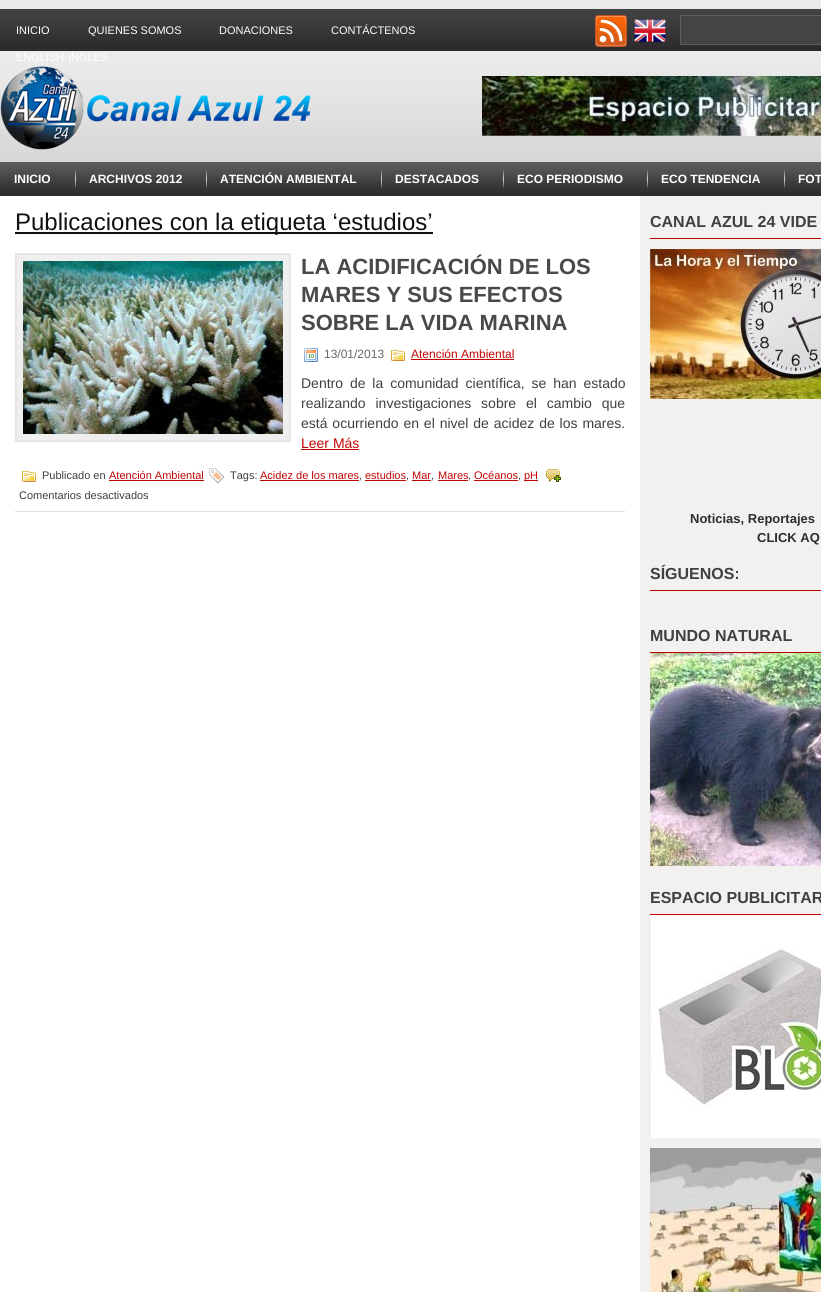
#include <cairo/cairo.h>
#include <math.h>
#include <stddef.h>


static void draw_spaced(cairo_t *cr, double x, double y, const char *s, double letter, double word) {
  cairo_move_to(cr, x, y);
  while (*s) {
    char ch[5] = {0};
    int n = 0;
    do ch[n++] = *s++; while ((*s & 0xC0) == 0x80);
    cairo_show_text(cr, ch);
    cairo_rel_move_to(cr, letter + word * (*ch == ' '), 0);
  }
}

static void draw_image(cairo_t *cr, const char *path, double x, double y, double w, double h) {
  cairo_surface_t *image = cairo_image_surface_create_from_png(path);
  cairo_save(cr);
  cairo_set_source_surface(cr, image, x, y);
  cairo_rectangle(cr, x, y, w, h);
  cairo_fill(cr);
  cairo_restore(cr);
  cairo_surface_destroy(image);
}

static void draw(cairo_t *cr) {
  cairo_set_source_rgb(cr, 1, 1, 1);
  cairo_paint(cr);
  draw_image(cr, "images/1.png", 0, 0, 821, 162);
  draw_image(cr, "images/2.png", 0, 162, 821, 34);
  draw_image(cr, "images/3.png", 595, 15, 32, 32);
  draw_image(cr, "images/4.png", 634, 19, 32, 24);
  cairo_set_source_rgb(cr, 68 / 255.0, 68 / 255.0, 68 / 255.0);
  cairo_rectangle(cr, 680.5, 15.5, 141, 29);
  cairo_fill_preserve(cr);
  cairo_set_source_rgb(cr, 96 / 255.0, 95 / 255.0, 95 / 255.0);
  cairo_set_line_width(cr, 1);
  cairo_stroke(cr);
  draw_image(cr, "images/5.png", 0, 66, 311, 84);
  draw_image(cr, "images/6.png", 482, 76, 339, 60);
  draw_image(cr, "images/7.png", 75, 168, 1, 22);
  draw_image(cr, "images/7.png", 206, 168, 1, 22);
  draw_image(cr, "images/7.png", 381, 168, 1, 22);
  draw_image(cr, "images/7.png", 503, 168, 1, 22);
  draw_image(cr, "images/7.png", 647, 168, 1, 22);
  draw_image(cr, "images/7.png", 784, 168, 1, 22);
  cairo_set_source_rgb(cr, 243 / 255.0, 241 / 255.0, 240 / 255.0);
  cairo_rectangle(cr, 640, 196, 181, 1096);
  cairo_fill(cr);
  cairo_set_source_rgb(cr, 17 / 255.0, 17 / 255.0, 17 / 255.0);
  cairo_rectangle(cr, 15, 232, 418, 2);
  cairo_fill(cr);
  cairo_set_source_rgb(cr, 226 / 255.0, 224 / 255.0, 223 / 255.0);
  cairo_rectangle(cr, 15, 511, 610, 1);
  cairo_fill(cr);
  cairo_set_source_rgb(cr, 240 / 255.0, 239 / 255.0, 239 / 255.0);
  cairo_rectangle(cr, 16, 254, 274, 187);
  cairo_fill_preserve(cr);
  cairo_set_source_rgb(cr, 232 / 255.0, 229 / 255.0, 229 / 255.0);
  cairo_set_line_width(cr, 2);
  cairo_stroke(cr);
  draw_image(cr, "images/8.png", 23, 261, 260, 173);
  draw_image(cr, "images/9.png", 304, 348, 14, 14);
  draw_image(cr, "images/10.png", 391, 350, 14, 11);
  cairo_set_source_rgb(cr, 193 / 255.0, 5 / 255.0, 4 / 255.0);
  cairo_rectangle(cr, 411, 359, 103, 1);
  cairo_fill(cr);
  cairo_rectangle(cr, 301, 449, 58, 1);
  cairo_fill(cr);
  draw_image(cr, "images/10.png", 22, 471, 14, 11);
  cairo_rectangle(cr, 109, 480, 95, 1);
  cairo_fill(cr);
  draw_image(cr, "images/11.png", 209, 468, 16, 16);
  cairo_rectangle(cr, 260, 480, 99, 1);
  cairo_fill(cr);
  cairo_rectangle(cr, 365, 480, 41, 1);
  cairo_fill(cr);
  cairo_rectangle(cr, 412, 480, 19, 1);
  cairo_fill(cr);
  cairo_rectangle(cr, 438, 480, 30, 1);
  cairo_fill(cr);
  cairo_rectangle(cr, 474, 480, 44, 1);
  cairo_fill(cr);
  cairo_rectangle(cr, 524, 480, 14, 1);
  cairo_fill(cr);
  draw_image(cr, "images/12.png", 546, 469, 15, 13);
  cairo_set_source_rgb(cr, 185 / 255.0, 1 / 255.0, 1 / 255.0);
  cairo_rectangle(cr, 650, 238, 171, 1);
  cairo_fill(cr);
  draw_image(cr, "images/13.png", 650, 249, 171, 150);
  cairo_rectangle(cr, 650, 590, 171, 1);
  cairo_fill(cr);
  cairo_rectangle(cr, 650, 652, 171, 1);
  cairo_fill(cr);
  draw_image(cr, "images/14.png", 650, 653, 171, 213);
  cairo_rectangle(cr, 650, 914, 171, 1);
  cairo_fill(cr);
  draw_image(cr, "images/15.png", 651, 915, 170, 223);
  draw_image(cr, "images/16.png", 650, 1148, 171, 144);
  cairo_select_font_face(cr, "Liberation Sans", CAIRO_FONT_SLANT_NORMAL, CAIRO_FONT_WEIGHT_NORMAL);
  cairo_set_font_size(cr, 11);
  cairo_set_source_rgb(cr, 1, 1, 1);
  cairo_move_to(cr, 16, 34);
  cairo_show_text(cr, "INICIO");
  cairo_move_to(cr, 88, 34);
  cairo_show_text(cr, "QUIENES SOMOS");
  cairo_move_to(cr, 219, 34);
  cairo_show_text(cr, "DONACIONES");
  cairo_move_to(cr, 331, 34);
  cairo_show_text(cr, "CONTÁCTENOS");
  cairo_move_to(cr, 16, 61);
  cairo_show_text(cr, "ENGLISH-INGLES");
  cairo_select_font_face(cr, "Liberation Sans", CAIRO_FONT_SLANT_NORMAL, CAIRO_FONT_WEIGHT_BOLD);
  cairo_set_font_size(cr, 12);
  cairo_move_to(cr, 14, 183);
  cairo_show_text(cr, "INICIO");
  cairo_move_to(cr, 89, 183);
  cairo_show_text(cr, "ARCHIVOS 2012");
  cairo_move_to(cr, 220, 183);
  cairo_show_text(cr, "ATENCIÓN AMBIENTAL");
  cairo_move_to(cr, 395, 183);
  cairo_show_text(cr, "DESTACADOS");
  cairo_move_to(cr, 517, 183);
  cairo_show_text(cr, "ECO PERIODISMO");
  cairo_move_to(cr, 661, 183);
  cairo_show_text(cr, "ECO TENDENCIA");
  cairo_move_to(cr, 798, 183);
  cairo_show_text(cr, "FOT");
  cairo_select_font_face(cr, "Liberation Sans", CAIRO_FONT_SLANT_NORMAL, CAIRO_FONT_WEIGHT_NORMAL);
  cairo_set_font_size(cr, 24);
  cairo_set_source_rgb(cr, 17 / 255.0, 17 / 255.0, 17 / 255.0);
  cairo_move_to(cr, 15, 230);
  cairo_show_text(cr, "Publicaciones con la etiqueta ‘estudios’");
  cairo_select_font_face(cr, "Liberation Sans", CAIRO_FONT_SLANT_NORMAL, CAIRO_FONT_WEIGHT_BOLD);
  cairo_set_font_size(cr, 22);
  cairo_set_source_rgb(cr, 74 / 255.0, 72 / 255.0, 72 / 255.0);
  cairo_move_to(cr, 301, 274);
  cairo_show_text(cr, "LA ACIDIFICACIÓN DE LOS");
  cairo_move_to(cr, 301, 302);
  cairo_show_text(cr, "MARES Y SUS EFECTOS");
  cairo_move_to(cr, 301, 330);
  cairo_show_text(cr, "SOBRE LA VIDA MARINA");
  cairo_select_font_face(cr, "Liberation Sans", CAIRO_FONT_SLANT_NORMAL, CAIRO_FONT_WEIGHT_NORMAL);
  cairo_set_font_size(cr, 12);
  cairo_set_source_rgb(cr, 102 / 255.0, 102 / 255.0, 102 / 255.0);
  cairo_move_to(cr, 324, 358);
  cairo_show_text(cr, "13/01/2013");
  cairo_set_source_rgb(cr, 193 / 255.0, 5 / 255.0, 4 / 255.0);
  cairo_move_to(cr, 411, 358);
  cairo_show_text(cr, "Atención Ambiental");
  cairo_set_font_size(cr, 14);
  cairo_set_source_rgb(cr, 64 / 255.0, 64 / 255.0, 64 / 255.0);
  draw_spaced(cr, 301, 388, "Dentro de la comunidad científica, se han estado", 0, 3);
  draw_spaced(cr, 301, 408, "realizando investigaciones sobre el cambio que", 0, 6);
  draw_spaced(cr, 301, 428, "está ocurriendo en el nivel de acidez de los mares.", 0, 1);
  cairo_set_source_rgb(cr, 193 / 255.0, 5 / 255.0, 4 / 255.0);
  cairo_move_to(cr, 301, 448);
  cairo_show_text(cr, "Leer Más");
  cairo_set_font_size(cr, 11);
  cairo_set_source_rgb(cr, 64 / 255.0, 64 / 255.0, 64 / 255.0);
  cairo_move_to(cr, 42, 479);
  cairo_show_text(cr, "Publicado en");
  cairo_set_source_rgb(cr, 193 / 255.0, 5 / 255.0, 4 / 255.0);
  cairo_move_to(cr, 109, 479);
  cairo_show_text(cr, "Atención Ambiental");
  cairo_set_source_rgb(cr, 64 / 255.0, 64 / 255.0, 64 / 255.0);
  cairo_move_to(cr, 230, 479);
  cairo_show_text(cr, "Tags:");
  cairo_set_source_rgb(cr, 193 / 255.0, 5 / 255.0, 4 / 255.0);
  cairo_move_to(cr, 260, 479);
  cairo_show_text(cr, "Acidez de los mares");
  cairo_set_source_rgb(cr, 64 / 255.0, 64 / 255.0, 64 / 255.0);
  cairo_move_to(cr, 359, 479);
  cairo_show_text(cr, ",");
  cairo_set_source_rgb(cr, 193 / 255.0, 5 / 255.0, 4 / 255.0);
  cairo_move_to(cr, 365, 479);
  cairo_show_text(cr, "estudios");
  cairo_set_source_rgb(cr, 64 / 255.0, 64 / 255.0, 64 / 255.0);
  cairo_move_to(cr, 406, 479);
  cairo_show_text(cr, ",");
  cairo_set_source_rgb(cr, 193 / 255.0, 5 / 255.0, 4 / 255.0);
  cairo_move_to(cr, 412, 479);
  cairo_show_text(cr, "Mar");
  cairo_set_source_rgb(cr, 64 / 255.0, 64 / 255.0, 64 / 255.0);
  cairo_move_to(cr, 431, 479);
  cairo_show_text(cr, ",");
  cairo_set_source_rgb(cr, 193 / 255.0, 5 / 255.0, 4 / 255.0);
  cairo_move_to(cr, 438, 479);
  cairo_show_text(cr, "Mares");
  cairo_set_source_rgb(cr, 64 / 255.0, 64 / 255.0, 64 / 255.0);
  cairo_move_to(cr, 468, 479);
  cairo_show_text(cr, ",");
  cairo_set_source_rgb(cr, 193 / 255.0, 5 / 255.0, 4 / 255.0);
  cairo_move_to(cr, 474, 479);
  cairo_show_text(cr, "Océanos");
  cairo_set_source_rgb(cr, 64 / 255.0, 64 / 255.0, 64 / 255.0);
  cairo_move_to(cr, 518, 479);
  cairo_show_text(cr, ",");
  cairo_set_source_rgb(cr, 193 / 255.0, 5 / 255.0, 4 / 255.0);
  cairo_move_to(cr, 524, 479);
  cairo_show_text(cr, "pH");
  cairo_set_source_rgb(cr, 64 / 255.0, 64 / 255.0, 64 / 255.0);
  cairo_move_to(cr, 19, 499);
  cairo_show_text(cr, "Comentarios desactivados");
  cairo_select_font_face(cr, "Liberation Sans", CAIRO_FONT_SLANT_NORMAL, CAIRO_FONT_WEIGHT_BOLD);
  cairo_set_font_size(cr, 16);
  cairo_move_to(cr, 650, 227);
  cairo_show_text(cr, "CANAL AZUL 24 VIDE");
  cairo_set_font_size(cr, 13);
  cairo_set_source_rgb(cr, 46 / 255.0, 45 / 255.0, 43 / 255.0);
  cairo_move_to(cr, 690, 523);
  cairo_show_text(cr, "Noticias, Reportajes");
  cairo_move_to(cr, 757, 542);
  cairo_show_text(cr, "CLICK AQ");
  cairo_set_font_size(cr, 16);
  cairo_set_source_rgb(cr, 64 / 255.0, 64 / 255.0, 64 / 255.0);
  cairo_move_to(cr, 650, 579);
  cairo_show_text(cr, "SÍGUENOS:");
  cairo_move_to(cr, 650, 641);
  cairo_show_text(cr, "MUNDO NATURAL");
  cairo_move_to(cr, 650, 903);
  cairo_show_text(cr, "ESPACIO PUBLICITAR");
}

int main(void) {
  cairo_surface_t *surface = cairo_image_surface_create(CAIRO_FORMAT_RGB24, 821, 1292);
  cairo_t *cr = cairo_create(surface);
  cairo_font_options_t *options = cairo_font_options_create();
  cairo_font_options_set_hint_metrics(options, CAIRO_HINT_METRICS_OFF);
  cairo_font_options_set_hint_style(options, CAIRO_HINT_STYLE_NONE);
  cairo_set_font_options(cr, options);
  cairo_set_miter_limit(cr, 4);
  draw(cr);
  cairo_surface_write_to_png(surface, "out.png");
  cairo_font_options_destroy(options);
  cairo_destroy(cr);
  cairo_surface_destroy(surface);
  return 0;
}
